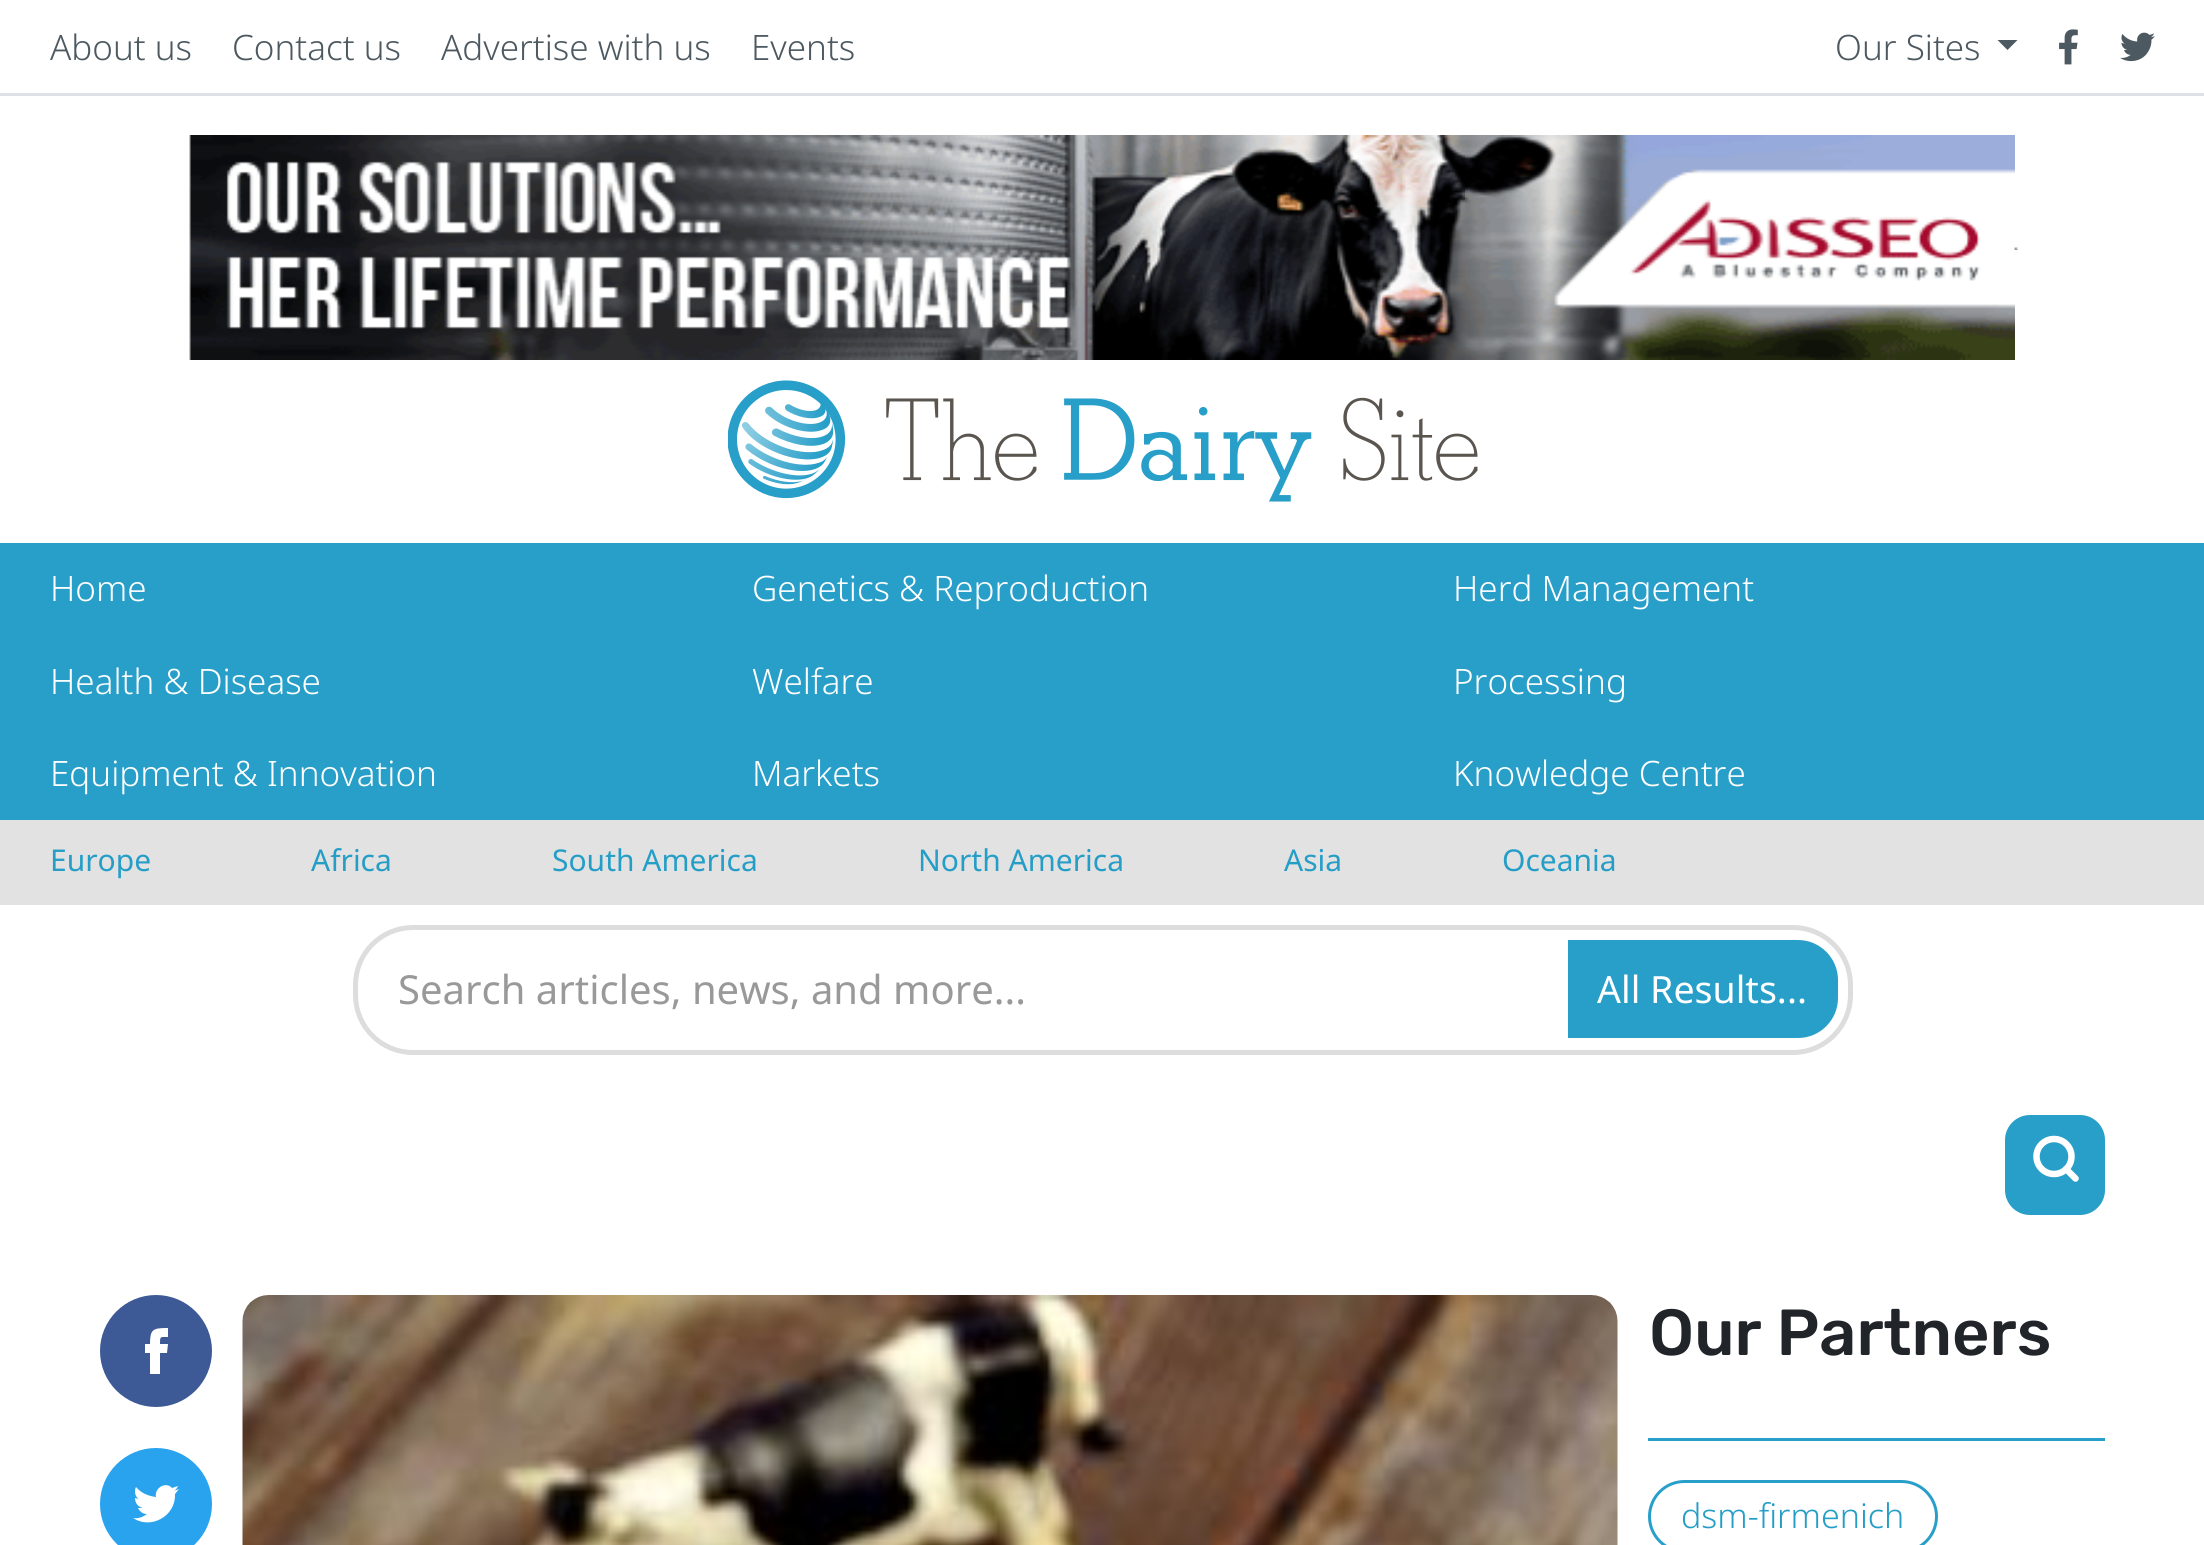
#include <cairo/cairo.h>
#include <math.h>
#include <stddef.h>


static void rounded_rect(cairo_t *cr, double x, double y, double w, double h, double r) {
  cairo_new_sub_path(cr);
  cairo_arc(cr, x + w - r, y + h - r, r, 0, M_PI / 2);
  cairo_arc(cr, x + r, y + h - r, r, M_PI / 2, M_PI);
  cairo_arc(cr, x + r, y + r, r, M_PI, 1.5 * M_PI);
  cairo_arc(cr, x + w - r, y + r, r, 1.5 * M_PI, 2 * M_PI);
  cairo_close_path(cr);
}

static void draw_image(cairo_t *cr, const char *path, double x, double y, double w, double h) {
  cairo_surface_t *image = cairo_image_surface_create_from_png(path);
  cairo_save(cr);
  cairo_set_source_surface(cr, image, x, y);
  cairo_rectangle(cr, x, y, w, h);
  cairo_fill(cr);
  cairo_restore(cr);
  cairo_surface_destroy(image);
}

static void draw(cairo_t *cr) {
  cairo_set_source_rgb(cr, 1, 1, 1);
  cairo_paint(cr);
  cairo_set_source_rgb(cr, 222 / 255.0, 226 / 255.0, 230 / 255.0);
  cairo_rectangle(cr, 0, 93, 2204, 3);
  cairo_fill(cr);
  cairo_set_source_rgb(cr, 77 / 255.0, 89 / 255.0, 97 / 255.0);
  cairo_new_path(cr);
  cairo_move_to(cr, 1997.5, 40);
  cairo_line_to(cr, 2017.5, 40);
  cairo_line_to(cr, 2007.5, 50);
  cairo_close_path(cr);
  cairo_fill(cr);
  draw_image(cr, "images/1.png", 2059, 29, 19, 36);
  draw_image(cr, "images/2.png", 2120, 32, 35, 30);
  draw_image(cr, "images/3.png", 189, 135, 1826, 225);
  draw_image(cr, "images/4.png", 2014, 247, 4, 3);
  draw_image(cr, "images/5.png", 728, 380, 750, 122);
  cairo_set_source_rgb(cr, 40 / 255.0, 159 / 255.0, 201 / 255.0);
  cairo_rectangle(cr, 0, 543, 2204, 277);
  cairo_fill(cr);
  cairo_set_source_rgb(cr, 226 / 255.0, 226 / 255.0, 226 / 255.0);
  cairo_rectangle(cr, 0, 820, 2204, 85);
  cairo_fill(cr);
  rounded_rect(cr, 355.5, 927.5, 1495, 125, 57.5);
  cairo_set_source_rgb(cr, 221 / 255.0, 221 / 255.0, 221 / 255.0);
  cairo_set_line_width(cr, 5);
  cairo_stroke(cr);
  cairo_set_source_rgb(cr, 40 / 255.0, 159 / 255.0, 201 / 255.0);
  cairo_new_path(cr);
  cairo_move_to(cr, 1568, 940);
  cairo_line_to(cr, 1798, 940);
  cairo_curve_to(cr, 1820, 940, 1838, 958, 1838, 980);
  cairo_line_to(cr, 1838, 998);
  cairo_curve_to(cr, 1838, 1020, 1820, 1038, 1798, 1038);
  cairo_line_to(cr, 1568, 1038);
  cairo_close_path(cr);
  cairo_fill(cr);
  rounded_rect(cr, 2005, 1115, 100, 100, 25);
  cairo_fill(cr);
  cairo_arc(cr, 2054, 1156.5, 17.5, 0, 2 * M_PI);
  cairo_set_source_rgb(cr, 1, 1, 1);
  cairo_set_line_width(cr, 6.5);
  cairo_stroke(cr);
  cairo_new_path(cr);
  cairo_move_to(cr, 2075.5, 1178.5);
  cairo_line_to(cr, 2066, 1169);
  cairo_set_line_cap(cr, CAIRO_LINE_CAP_ROUND);
  cairo_set_line_join(cr, CAIRO_LINE_JOIN_ROUND);
  cairo_stroke(cr);
  cairo_set_source_rgb(cr, 61 / 255.0, 90 / 255.0, 150 / 255.0);
  cairo_arc(cr, 156, 1351, 56, 0, 2 * M_PI);
  cairo_fill(cr);
  cairo_set_source_rgb(cr, 1, 1, 1);
  cairo_new_path(cr);
  cairo_move_to(cr, 160, 1374);
  cairo_line_to(cr, 150, 1374);
  cairo_line_to(cr, 150, 1353);
  cairo_line_to(cr, 145, 1353);
  cairo_line_to(cr, 145, 1344);
  cairo_line_to(cr, 150, 1344);
  cairo_curve_to(cr, 150, 1329, 153, 1328, 168, 1328);
  cairo_line_to(cr, 168, 1337);
  cairo_curve_to(cr, 160, 1337, 160, 1336, 160, 1344);
  cairo_line_to(cr, 168, 1344);
  cairo_line_to(cr, 167, 1353);
  cairo_line_to(cr, 160, 1353);
  cairo_close_path(cr);
  cairo_fill(cr);
  cairo_set_source_rgb(cr, 42 / 255.0, 163 / 255.0, 239 / 255.0);
  cairo_arc(cr, 156, 1504, 56, 0, 2 * M_PI);
  cairo_fill(cr);
  cairo_set_source_rgb(cr, 1, 1, 1);
  cairo_new_path(cr);
  cairo_move_to(cr, 179, 1489);
  cairo_line_to(cr, 174, 1491);
  cairo_curve_to(cr, 176, 1490, 177, 1488, 178, 1486);
  cairo_line_to(cr, 172, 1488);
  cairo_curve_to(cr, 166, 1481, 154, 1488, 156, 1497);
  cairo_curve_to(cr, 148, 1496, 141, 1493, 136, 1487);
  cairo_curve_to(cr, 134, 1491, 135, 1497, 139, 1499);
  cairo_line_to(cr, 135, 1498);
  cairo_curve_to(cr, 135, 1503, 138, 1507, 143, 1508);
  cairo_line_to(cr, 138, 1508);
  cairo_curve_to(cr, 140, 1512, 143, 1514, 147, 1514);
  cairo_curve_to(cr, 143, 1517, 138, 1519, 133, 1518);
  cairo_curve_to(cr, 151, 1530, 176, 1516, 175, 1494);
  cairo_close_path(cr);
  cairo_fill(cr);
  draw_image(cr, "images/6.png", 242, 1295, 1376, 250);
  cairo_set_source_rgb(cr, 40 / 255.0, 159 / 255.0, 201 / 255.0);
  cairo_rectangle(cr, 1648, 1438, 457, 3);
  cairo_fill(cr);
  rounded_rect(cr, 1649.5, 1481.5, 287, 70, 35);
  cairo_set_line_width(cr, 3);
  cairo_set_line_cap(cr, CAIRO_LINE_CAP_BUTT);
  cairo_set_line_join(cr, CAIRO_LINE_JOIN_MITER);
  cairo_stroke(cr);
  cairo_select_font_face(cr, "Noto Sans Light", CAIRO_FONT_SLANT_NORMAL, CAIRO_FONT_WEIGHT_NORMAL);
  cairo_set_font_size(cr, 35);
  cairo_set_source_rgb(cr, 77 / 255.0, 89 / 255.0, 97 / 255.0);
  cairo_move_to(cr, 50, 60);
  cairo_show_text(cr, "About us");
  cairo_move_to(cr, 232, 60);
  cairo_show_text(cr, "Contact us");
  cairo_move_to(cr, 441, 60);
  cairo_show_text(cr, "Advertise with us");
  cairo_move_to(cr, 751, 60);
  cairo_show_text(cr, "Events");
  cairo_move_to(cr, 1835, 60);
  cairo_show_text(cr, "Our Sites");
  cairo_set_source_rgb(cr, 1, 1, 1);
  cairo_move_to(cr, 50, 601);
  cairo_show_text(cr, "Home");
  cairo_move_to(cr, 752, 601);
  cairo_show_text(cr, "Genetics & Reproduction");
  cairo_move_to(cr, 1453, 601);
  cairo_show_text(cr, "Herd Management");
  cairo_move_to(cr, 50, 694);
  cairo_show_text(cr, "Health & Disease");
  cairo_move_to(cr, 752, 694);
  cairo_show_text(cr, "Welfare");
  cairo_move_to(cr, 1453, 694);
  cairo_show_text(cr, "Processing");
  cairo_move_to(cr, 50, 786);
  cairo_show_text(cr, "Equipment & Innovation");
  cairo_move_to(cr, 752, 786);
  cairo_show_text(cr, "Markets");
  cairo_move_to(cr, 1453, 786);
  cairo_show_text(cr, "Knowledge Centre");
  cairo_select_font_face(cr, "Noto Sans", CAIRO_FONT_SLANT_NORMAL, CAIRO_FONT_WEIGHT_NORMAL);
  cairo_set_font_size(cr, 30);
  cairo_set_source_rgb(cr, 37 / 255.0, 158 / 255.0, 199 / 255.0);
  cairo_move_to(cr, 50, 871);
  cairo_show_text(cr, "Europe");
  cairo_move_to(cr, 311, 871);
  cairo_show_text(cr, "Africa");
  cairo_move_to(cr, 552, 871);
  cairo_show_text(cr, "South America");
  cairo_move_to(cr, 918, 871);
  cairo_show_text(cr, "North America");
  cairo_move_to(cr, 1284, 871);
  cairo_show_text(cr, "Asia");
  cairo_move_to(cr, 1502, 871);
  cairo_show_text(cr, "Oceania");
  cairo_set_font_size(cr, 40);
  cairo_set_source_rgb(cr, 153 / 255.0, 153 / 255.0, 153 / 255.0);
  cairo_move_to(cr, 398, 1004);
  cairo_show_text(cr, "Search articles, news, and more...");
  cairo_set_font_size(cr, 37.5);
  cairo_set_source_rgb(cr, 1, 1, 1);
  cairo_move_to(cr, 1597, 1003);
  cairo_show_text(cr, "All Results...");
  cairo_select_font_face(cr, "Rubik Medium", CAIRO_FONT_SLANT_NORMAL, CAIRO_FONT_WEIGHT_NORMAL);
  cairo_set_font_size(cr, 65);
  cairo_set_source_rgb(cr, 33 / 255.0, 37 / 255.0, 41 / 255.0);
  cairo_move_to(cr, 1649, 1355);
  cairo_show_text(cr, "Our Partners");
  cairo_select_font_face(cr, "Noto Sans Light", CAIRO_FONT_SLANT_NORMAL, CAIRO_FONT_WEIGHT_NORMAL);
  cairo_set_font_size(cr, 34);
  cairo_set_source_rgb(cr, 37 / 255.0, 158 / 255.0, 199 / 255.0);
  cairo_move_to(cr, 1681, 1528);
  cairo_show_text(cr, "dsm-firmenich");
}

int main(void) {
  cairo_surface_t *surface = cairo_image_surface_create(CAIRO_FORMAT_RGB24, 2204, 1545);
  cairo_t *cr = cairo_create(surface);
  cairo_font_options_t *options = cairo_font_options_create();
  cairo_font_options_set_hint_metrics(options, CAIRO_HINT_METRICS_OFF);
  cairo_font_options_set_hint_style(options, CAIRO_HINT_STYLE_NONE);
  cairo_set_font_options(cr, options);
  cairo_set_miter_limit(cr, 4);
  draw(cr);
  cairo_surface_write_to_png(surface, "out.png");
  cairo_font_options_destroy(options);
  cairo_destroy(cr);
  cairo_surface_destroy(surface);
  return 0;
}
